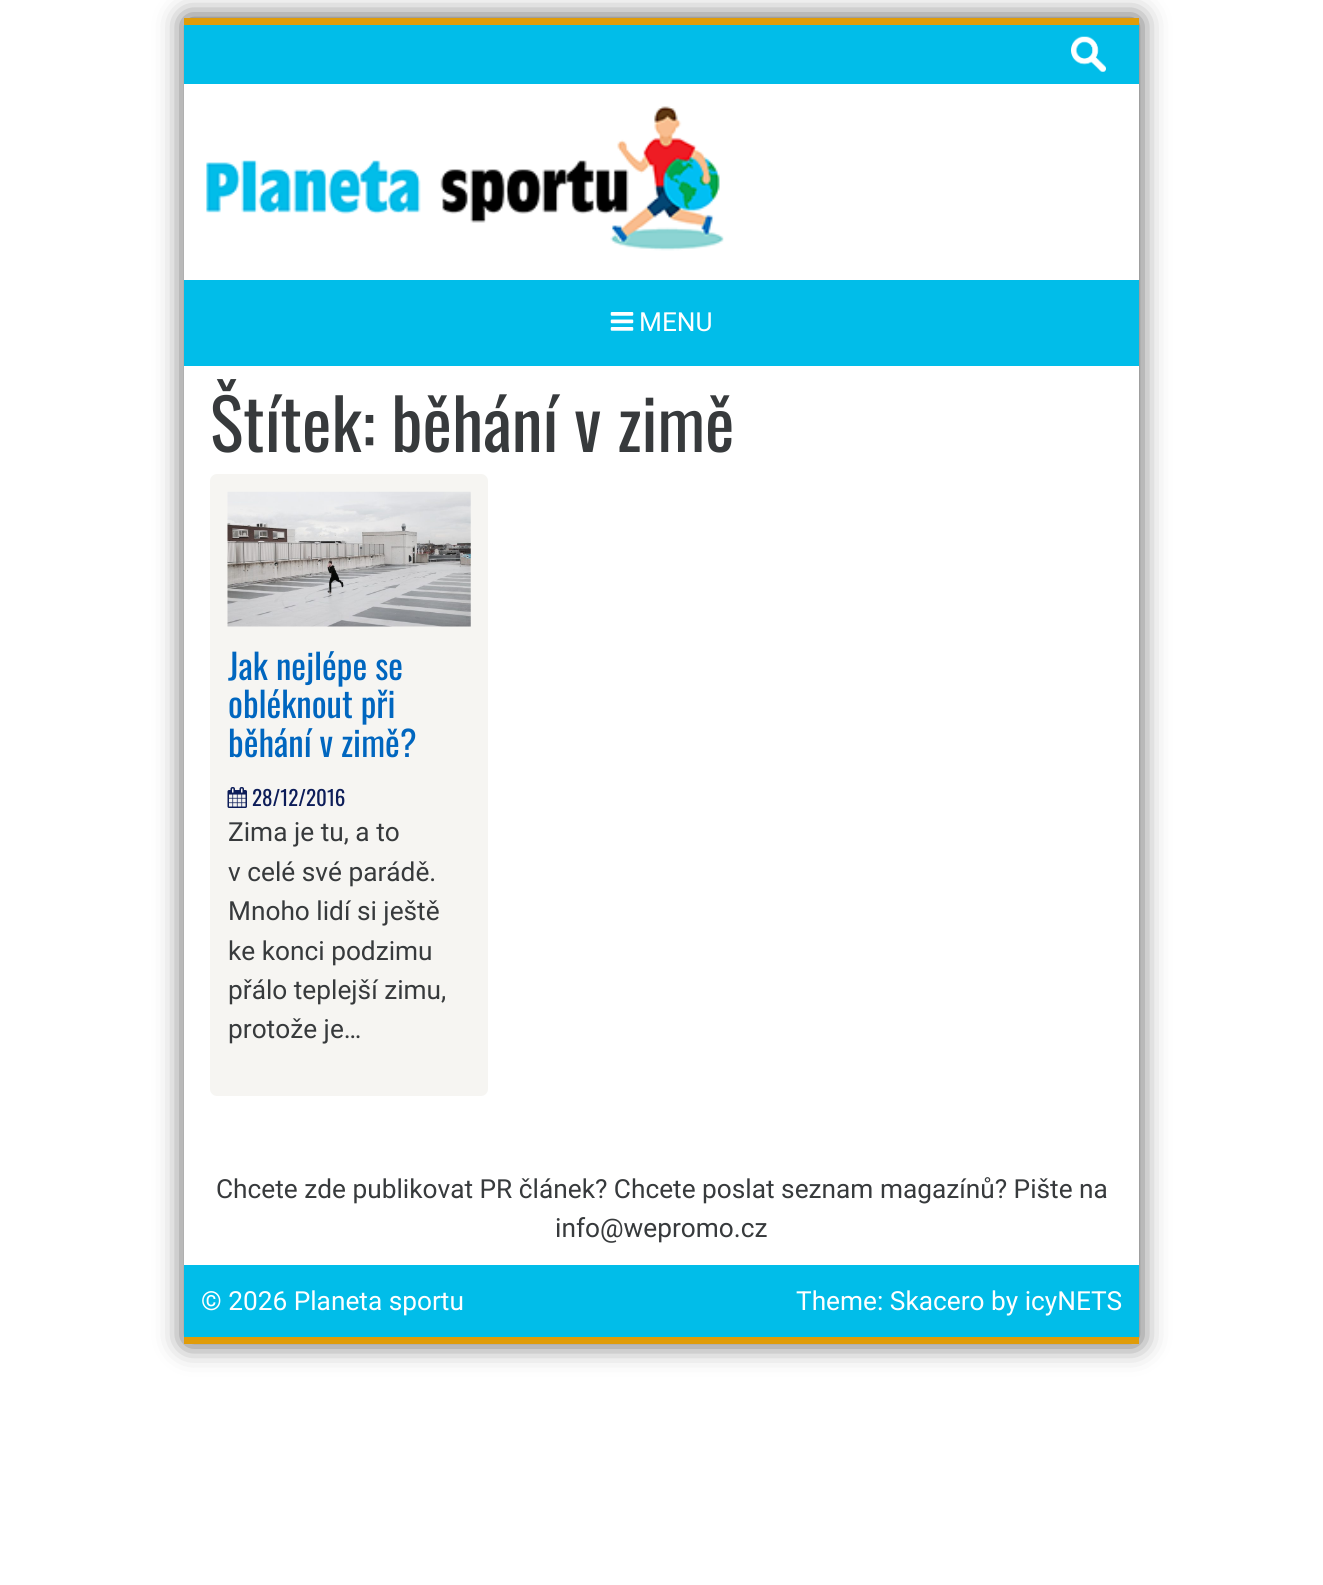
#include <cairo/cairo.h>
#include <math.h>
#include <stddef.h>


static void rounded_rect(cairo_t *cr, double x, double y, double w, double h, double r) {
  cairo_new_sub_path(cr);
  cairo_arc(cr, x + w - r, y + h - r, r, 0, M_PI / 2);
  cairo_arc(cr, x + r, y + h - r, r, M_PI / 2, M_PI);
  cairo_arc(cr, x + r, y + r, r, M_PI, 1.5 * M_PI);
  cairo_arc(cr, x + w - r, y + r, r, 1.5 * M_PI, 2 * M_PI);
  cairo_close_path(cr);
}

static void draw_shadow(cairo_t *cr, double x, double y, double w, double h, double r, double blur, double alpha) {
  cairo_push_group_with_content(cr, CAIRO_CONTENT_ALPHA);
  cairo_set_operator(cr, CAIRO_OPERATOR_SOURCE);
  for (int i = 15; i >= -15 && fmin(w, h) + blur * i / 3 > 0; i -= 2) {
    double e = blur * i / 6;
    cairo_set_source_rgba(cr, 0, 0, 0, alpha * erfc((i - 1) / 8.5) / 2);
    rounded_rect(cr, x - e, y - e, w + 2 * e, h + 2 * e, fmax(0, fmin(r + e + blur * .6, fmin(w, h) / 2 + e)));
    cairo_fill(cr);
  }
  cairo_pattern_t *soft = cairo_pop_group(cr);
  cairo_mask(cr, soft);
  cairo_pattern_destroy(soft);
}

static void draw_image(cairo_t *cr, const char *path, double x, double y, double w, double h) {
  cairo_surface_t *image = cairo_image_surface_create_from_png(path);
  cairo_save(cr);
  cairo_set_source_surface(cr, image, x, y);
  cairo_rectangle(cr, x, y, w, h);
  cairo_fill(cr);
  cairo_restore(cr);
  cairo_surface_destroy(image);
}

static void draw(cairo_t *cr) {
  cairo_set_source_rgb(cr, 1, 1, 1);
  cairo_paint(cr);
  cairo_save(cr);
  cairo_set_fill_rule(cr, CAIRO_FILL_RULE_EVEN_ODD);
  cairo_new_path(cr);
  cairo_move_to(cr, 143, 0);
  cairo_line_to(cr, 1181, 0);
  cairo_line_to(cr, 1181, 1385);
  cairo_line_to(cr, 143, 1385);
  cairo_close_path(cr);
  cairo_move_to(cr, 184, 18);
  cairo_line_to(cr, 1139, 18);
  cairo_line_to(cr, 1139, 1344);
  cairo_line_to(cr, 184, 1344);
  cairo_close_path(cr);
  cairo_clip(cr);
  cairo_set_source_rgb(cr, 0, 0, 0);
  draw_shadow(cr, 186, 19, 952, 1323, 0, 14, 0.75);
  cairo_restore(cr);
  cairo_set_source_rgb(cr, 224 / 255.0, 156 / 255.0, 9 / 255.0);
  cairo_rectangle(cr, 184, 18, 955, 7);
  cairo_fill(cr);
  cairo_set_source_rgb(cr, 1 / 255.0, 189 / 255.0, 233 / 255.0);
  cairo_rectangle(cr, 184, 25, 955, 59);
  cairo_fill(cr);
  draw_image(cr, "images/1.png", 1071, 36, 35, 36);
  draw_image(cr, "images/2.png", 206, 106, 518, 145);
  cairo_rectangle(cr, 184, 280, 955, 86);
  cairo_fill(cr);
  draw_image(cr, "images/3.png", 610, 312, 24, 19);
  cairo_set_source_rgb(cr, 246 / 255.0, 245 / 255.0, 242 / 255.0);
  rounded_rect(cr, 210, 474, 278, 622, 7);
  cairo_fill(cr);
  draw_image(cr, "images/4.png", 227, 491, 244, 136);
  draw_image(cr, "images/5.png", 227, 787, 20, 21);
  cairo_set_source_rgb(cr, 1 / 255.0, 189 / 255.0, 233 / 255.0);
  cairo_rectangle(cr, 184, 1265, 955, 72);
  cairo_fill(cr);
  cairo_set_source_rgb(cr, 224 / 255.0, 156 / 255.0, 9 / 255.0);
  cairo_rectangle(cr, 184, 1337, 955, 7);
  cairo_fill(cr);
  cairo_select_font_face(cr, "Roboto", CAIRO_FONT_SLANT_NORMAL, CAIRO_FONT_WEIGHT_NORMAL);
  cairo_set_font_size(cr, 26.25);
  cairo_set_source_rgb(cr, 1, 1, 1);
  cairo_move_to(cr, 639, 331);
  cairo_show_text(cr, "MENU");
  cairo_select_font_face(cr, "Oswald", CAIRO_FONT_SLANT_NORMAL, CAIRO_FONT_WEIGHT_NORMAL);
  cairo_set_font_size(cr, 70);
  cairo_set_source_rgb(cr, 55 / 255.0, 58 / 255.0, 60 / 255.0);
  cairo_move_to(cr, 210, 452);
  cairo_show_text(cr, "Štítek: běhání v zimě");
  cairo_set_font_size(cr, 35);
  cairo_set_source_rgb(cr, 0, 102 / 255.0, 191 / 255.0);
  cairo_move_to(cr, 228, 680);
  cairo_show_text(cr, "Jak nejlépe se");
  cairo_move_to(cr, 228, 718);
  cairo_show_text(cr, "obléknout při");
  cairo_move_to(cr, 228, 757);
  cairo_show_text(cr, "běhání v zimě?");
  cairo_set_font_size(cr, 21);
  cairo_set_source_rgb(cr, 13 / 255.0, 29 / 255.0, 89 / 255.0);
  cairo_move_to(cr, 252, 806);
  cairo_show_text(cr, "28/12/2016");
  cairo_select_font_face(cr, "Roboto", CAIRO_FONT_SLANT_NORMAL, CAIRO_FONT_WEIGHT_NORMAL);
  cairo_set_font_size(cr, 26.25);
  cairo_set_source_rgb(cr, 55 / 255.0, 58 / 255.0, 60 / 255.0);
  cairo_move_to(cr, 228, 841);
  cairo_show_text(cr, "Zima je tu, a to");
  cairo_move_to(cr, 228, 881);
  cairo_show_text(cr, "v celé své parádě.");
  cairo_move_to(cr, 228, 920);
  cairo_show_text(cr, "Mnoho lidí si ještě");
  cairo_move_to(cr, 228, 960);
  cairo_show_text(cr, "ke konci podzimu");
  cairo_move_to(cr, 228, 999);
  cairo_show_text(cr, "přálo teplejší zimu,");
  cairo_move_to(cr, 228, 1038);
  cairo_show_text(cr, "protože je…");
  cairo_move_to(cr, 216, 1198);
  cairo_show_text(cr, "Chcete zde publikovat PR článek? Chcete poslat seznam magazínů? Pište na");
  cairo_move_to(cr, 555, 1237);
  cairo_show_text(cr, "info@wepromo.cz");
  cairo_set_source_rgb(cr, 1, 1, 1);
  cairo_move_to(cr, 201, 1310);
  cairo_show_text(cr, "© 2026 Planeta sportu");
  cairo_move_to(cr, 796, 1310);
  cairo_show_text(cr, "Theme: Skacero by icyNETS");
}

int main(void) {
  cairo_surface_t *surface = cairo_image_surface_create(CAIRO_FORMAT_RGB24, 1323, 1585);
  cairo_t *cr = cairo_create(surface);
  cairo_font_options_t *options = cairo_font_options_create();
  cairo_font_options_set_hint_metrics(options, CAIRO_HINT_METRICS_OFF);
  cairo_font_options_set_hint_style(options, CAIRO_HINT_STYLE_NONE);
  cairo_set_font_options(cr, options);
  cairo_set_miter_limit(cr, 4);
  draw(cr);
  cairo_surface_write_to_png(surface, "out.png");
  cairo_font_options_destroy(options);
  cairo_destroy(cr);
  cairo_surface_destroy(surface);
  return 0;
}
